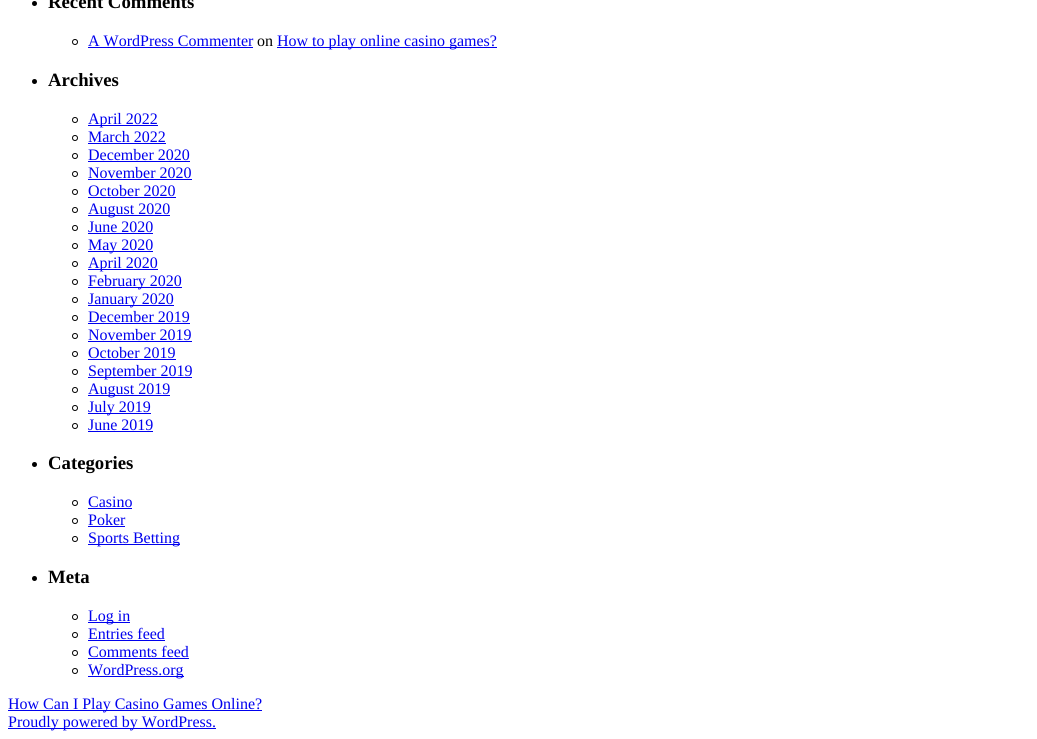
#include <cairo/cairo.h>
#include <math.h>
#include <stddef.h>


static void draw(cairo_t *cr) {
  cairo_set_source_rgb(cr, 1, 1, 1);
  cairo_paint(cr);
  cairo_set_source_rgb(cr, 0, 0, 0);
  cairo_arc(cr, 34.5, 3.5, 2.5, 0, 2 * M_PI);
  cairo_fill(cr);
  cairo_arc(cr, 75, 42, 2.5, 0, 2 * M_PI);
  cairo_set_line_width(cr, 1);
  cairo_stroke(cr);
  cairo_set_source_rgb(cr, 0, 0, 238 / 255.0);
  cairo_rectangle(cr, 88, 47, 165, 1);
  cairo_fill(cr);
  cairo_rectangle(cr, 277, 47, 220, 1);
  cairo_fill(cr);
  cairo_set_source_rgb(cr, 0, 0, 0);
  cairo_arc(cr, 34.5, 81.5, 2.5, 0, 2 * M_PI);
  cairo_fill(cr);
  cairo_arc(cr, 75, 120, 2.5, 0, 2 * M_PI);
  cairo_stroke(cr);
  cairo_set_source_rgb(cr, 0, 0, 238 / 255.0);
  cairo_rectangle(cr, 88, 125, 70, 1);
  cairo_fill(cr);
  cairo_arc(cr, 75, 138, 2.5, 0, 2 * M_PI);
  cairo_set_source_rgb(cr, 0, 0, 0);
  cairo_stroke(cr);
  cairo_set_source_rgb(cr, 0, 0, 238 / 255.0);
  cairo_rectangle(cr, 88, 143, 78, 1);
  cairo_fill(cr);
  cairo_arc(cr, 75, 156, 2.5, 0, 2 * M_PI);
  cairo_set_source_rgb(cr, 0, 0, 0);
  cairo_stroke(cr);
  cairo_set_source_rgb(cr, 0, 0, 238 / 255.0);
  cairo_rectangle(cr, 88, 161, 102, 1);
  cairo_fill(cr);
  cairo_arc(cr, 75, 174, 2.5, 0, 2 * M_PI);
  cairo_set_source_rgb(cr, 0, 0, 0);
  cairo_stroke(cr);
  cairo_set_source_rgb(cr, 0, 0, 238 / 255.0);
  cairo_rectangle(cr, 88, 179, 104, 1);
  cairo_fill(cr);
  cairo_arc(cr, 75, 192, 2.5, 0, 2 * M_PI);
  cairo_set_source_rgb(cr, 0, 0, 0);
  cairo_stroke(cr);
  cairo_set_source_rgb(cr, 0, 0, 238 / 255.0);
  cairo_rectangle(cr, 88, 197, 88, 1);
  cairo_fill(cr);
  cairo_arc(cr, 75, 210, 2.5, 0, 2 * M_PI);
  cairo_set_source_rgb(cr, 0, 0, 0);
  cairo_stroke(cr);
  cairo_set_source_rgb(cr, 0, 0, 238 / 255.0);
  cairo_rectangle(cr, 88, 215, 82, 1);
  cairo_fill(cr);
  cairo_arc(cr, 75, 228, 2.5, 0, 2 * M_PI);
  cairo_set_source_rgb(cr, 0, 0, 0);
  cairo_stroke(cr);
  cairo_set_source_rgb(cr, 0, 0, 238 / 255.0);
  cairo_rectangle(cr, 88, 233, 65, 1);
  cairo_fill(cr);
  cairo_arc(cr, 75, 246, 2.5, 0, 2 * M_PI);
  cairo_set_source_rgb(cr, 0, 0, 0);
  cairo_stroke(cr);
  cairo_set_source_rgb(cr, 0, 0, 238 / 255.0);
  cairo_rectangle(cr, 88, 251, 65, 1);
  cairo_fill(cr);
  cairo_arc(cr, 75, 264, 2.5, 0, 2 * M_PI);
  cairo_set_source_rgb(cr, 0, 0, 0);
  cairo_stroke(cr);
  cairo_set_source_rgb(cr, 0, 0, 238 / 255.0);
  cairo_rectangle(cr, 88, 269, 70, 1);
  cairo_fill(cr);
  cairo_arc(cr, 75, 282, 2.5, 0, 2 * M_PI);
  cairo_set_source_rgb(cr, 0, 0, 0);
  cairo_stroke(cr);
  cairo_set_source_rgb(cr, 0, 0, 238 / 255.0);
  cairo_rectangle(cr, 88, 287, 94, 1);
  cairo_fill(cr);
  cairo_arc(cr, 75, 300, 2.5, 0, 2 * M_PI);
  cairo_set_source_rgb(cr, 0, 0, 0);
  cairo_stroke(cr);
  cairo_set_source_rgb(cr, 0, 0, 238 / 255.0);
  cairo_rectangle(cr, 88, 305, 86, 1);
  cairo_fill(cr);
  cairo_arc(cr, 75, 318, 2.5, 0, 2 * M_PI);
  cairo_set_source_rgb(cr, 0, 0, 0);
  cairo_stroke(cr);
  cairo_set_source_rgb(cr, 0, 0, 238 / 255.0);
  cairo_rectangle(cr, 88, 323, 102, 1);
  cairo_fill(cr);
  cairo_arc(cr, 75, 336, 2.5, 0, 2 * M_PI);
  cairo_set_source_rgb(cr, 0, 0, 0);
  cairo_stroke(cr);
  cairo_set_source_rgb(cr, 0, 0, 238 / 255.0);
  cairo_rectangle(cr, 88, 341, 104, 1);
  cairo_fill(cr);
  cairo_arc(cr, 75, 354, 2.5, 0, 2 * M_PI);
  cairo_set_source_rgb(cr, 0, 0, 0);
  cairo_stroke(cr);
  cairo_set_source_rgb(cr, 0, 0, 238 / 255.0);
  cairo_rectangle(cr, 88, 359, 88, 1);
  cairo_fill(cr);
  cairo_arc(cr, 75, 372, 2.5, 0, 2 * M_PI);
  cairo_set_source_rgb(cr, 0, 0, 0);
  cairo_stroke(cr);
  cairo_set_source_rgb(cr, 0, 0, 238 / 255.0);
  cairo_rectangle(cr, 88, 377, 104, 1);
  cairo_fill(cr);
  cairo_arc(cr, 75, 390, 2.5, 0, 2 * M_PI);
  cairo_set_source_rgb(cr, 0, 0, 0);
  cairo_stroke(cr);
  cairo_set_source_rgb(cr, 0, 0, 238 / 255.0);
  cairo_rectangle(cr, 88, 395, 82, 1);
  cairo_fill(cr);
  cairo_arc(cr, 75, 408, 2.5, 0, 2 * M_PI);
  cairo_set_source_rgb(cr, 0, 0, 0);
  cairo_stroke(cr);
  cairo_set_source_rgb(cr, 0, 0, 238 / 255.0);
  cairo_rectangle(cr, 88, 413, 63, 1);
  cairo_fill(cr);
  cairo_arc(cr, 75, 426, 2.5, 0, 2 * M_PI);
  cairo_set_source_rgb(cr, 0, 0, 0);
  cairo_stroke(cr);
  cairo_set_source_rgb(cr, 0, 0, 238 / 255.0);
  cairo_rectangle(cr, 88, 431, 65, 1);
  cairo_fill(cr);
  cairo_set_source_rgb(cr, 0, 0, 0);
  cairo_arc(cr, 34.5, 464.5, 2.5, 0, 2 * M_PI);
  cairo_fill(cr);
  cairo_arc(cr, 75, 503, 2.5, 0, 2 * M_PI);
  cairo_stroke(cr);
  cairo_set_source_rgb(cr, 0, 0, 238 / 255.0);
  cairo_rectangle(cr, 88, 508, 44, 1);
  cairo_fill(cr);
  cairo_arc(cr, 75, 521, 2.5, 0, 2 * M_PI);
  cairo_set_source_rgb(cr, 0, 0, 0);
  cairo_stroke(cr);
  cairo_set_source_rgb(cr, 0, 0, 238 / 255.0);
  cairo_rectangle(cr, 88, 526, 37, 1);
  cairo_fill(cr);
  cairo_arc(cr, 75, 539, 2.5, 0, 2 * M_PI);
  cairo_set_source_rgb(cr, 0, 0, 0);
  cairo_stroke(cr);
  cairo_set_source_rgb(cr, 0, 0, 238 / 255.0);
  cairo_rectangle(cr, 88, 544, 92, 1);
  cairo_fill(cr);
  cairo_set_source_rgb(cr, 0, 0, 0);
  cairo_arc(cr, 34.5, 578.5, 2.5, 0, 2 * M_PI);
  cairo_fill(cr);
  cairo_arc(cr, 75, 617, 2.5, 0, 2 * M_PI);
  cairo_stroke(cr);
  cairo_set_source_rgb(cr, 0, 0, 238 / 255.0);
  cairo_rectangle(cr, 88, 622, 42, 1);
  cairo_fill(cr);
  cairo_arc(cr, 75, 635, 2.5, 0, 2 * M_PI);
  cairo_set_source_rgb(cr, 0, 0, 0);
  cairo_stroke(cr);
  cairo_set_source_rgb(cr, 0, 0, 238 / 255.0);
  cairo_rectangle(cr, 88, 640, 77, 1);
  cairo_fill(cr);
  cairo_arc(cr, 75, 653, 2.5, 0, 2 * M_PI);
  cairo_set_source_rgb(cr, 0, 0, 0);
  cairo_stroke(cr);
  cairo_set_source_rgb(cr, 0, 0, 238 / 255.0);
  cairo_rectangle(cr, 88, 658, 101, 1);
  cairo_fill(cr);
  cairo_arc(cr, 75, 671, 2.5, 0, 2 * M_PI);
  cairo_set_source_rgb(cr, 0, 0, 0);
  cairo_stroke(cr);
  cairo_set_source_rgb(cr, 0, 0, 238 / 255.0);
  cairo_rectangle(cr, 88, 676, 96, 1);
  cairo_fill(cr);
  cairo_rectangle(cr, 8, 710, 254, 1);
  cairo_fill(cr);
  cairo_rectangle(cr, 8, 728, 208, 1);
  cairo_fill(cr);
  cairo_select_font_face(cr, "Liberation Serif", CAIRO_FONT_SLANT_NORMAL, CAIRO_FONT_WEIGHT_BOLD);
  cairo_set_font_size(cr, 18.75);
  cairo_set_source_rgb(cr, 0, 0, 0);
  cairo_move_to(cr, 48, 8);
  cairo_show_text(cr, "Recent Comments");
  cairo_select_font_face(cr, "Liberation Serif", CAIRO_FONT_SLANT_NORMAL, CAIRO_FONT_WEIGHT_NORMAL);
  cairo_set_font_size(cr, 16);
  cairo_set_source_rgb(cr, 0, 0, 238 / 255.0);
  cairo_move_to(cr, 88, 46);
  cairo_show_text(cr, "A WordPress Commenter");
  cairo_set_source_rgb(cr, 0, 0, 0);
  cairo_move_to(cr, 257, 46);
  cairo_show_text(cr, "on");
  cairo_set_source_rgb(cr, 0, 0, 238 / 255.0);
  cairo_move_to(cr, 277, 46);
  cairo_show_text(cr, "How to play online casino games?");
  cairo_select_font_face(cr, "Liberation Serif", CAIRO_FONT_SLANT_NORMAL, CAIRO_FONT_WEIGHT_BOLD);
  cairo_set_font_size(cr, 18.75);
  cairo_set_source_rgb(cr, 0, 0, 0);
  cairo_move_to(cr, 48, 86);
  cairo_show_text(cr, "Archives");
  cairo_select_font_face(cr, "Liberation Serif", CAIRO_FONT_SLANT_NORMAL, CAIRO_FONT_WEIGHT_NORMAL);
  cairo_set_font_size(cr, 16);
  cairo_set_source_rgb(cr, 0, 0, 238 / 255.0);
  cairo_move_to(cr, 88, 124);
  cairo_show_text(cr, "April 2022");
  cairo_move_to(cr, 88, 142);
  cairo_show_text(cr, "March 2022");
  cairo_move_to(cr, 88, 160);
  cairo_show_text(cr, "December 2020");
  cairo_move_to(cr, 88, 178);
  cairo_show_text(cr, "November 2020");
  cairo_move_to(cr, 88, 196);
  cairo_show_text(cr, "October 2020");
  cairo_move_to(cr, 88, 214);
  cairo_show_text(cr, "August 2020");
  cairo_move_to(cr, 88, 232);
  cairo_show_text(cr, "June 2020");
  cairo_move_to(cr, 88, 250);
  cairo_show_text(cr, "May 2020");
  cairo_move_to(cr, 88, 268);
  cairo_show_text(cr, "April 2020");
  cairo_move_to(cr, 88, 286);
  cairo_show_text(cr, "February 2020");
  cairo_move_to(cr, 88, 304);
  cairo_show_text(cr, "January 2020");
  cairo_move_to(cr, 88, 322);
  cairo_show_text(cr, "December 2019");
  cairo_move_to(cr, 88, 340);
  cairo_show_text(cr, "November 2019");
  cairo_move_to(cr, 88, 358);
  cairo_show_text(cr, "October 2019");
  cairo_move_to(cr, 88, 376);
  cairo_show_text(cr, "September 2019");
  cairo_move_to(cr, 88, 394);
  cairo_show_text(cr, "August 2019");
  cairo_move_to(cr, 88, 412);
  cairo_show_text(cr, "July 2019");
  cairo_move_to(cr, 88, 430);
  cairo_show_text(cr, "June 2019");
  cairo_select_font_face(cr, "Liberation Serif", CAIRO_FONT_SLANT_NORMAL, CAIRO_FONT_WEIGHT_BOLD);
  cairo_set_font_size(cr, 18.75);
  cairo_set_source_rgb(cr, 0, 0, 0);
  cairo_move_to(cr, 48, 469);
  cairo_show_text(cr, "Categories");
  cairo_select_font_face(cr, "Liberation Serif", CAIRO_FONT_SLANT_NORMAL, CAIRO_FONT_WEIGHT_NORMAL);
  cairo_set_font_size(cr, 16);
  cairo_set_source_rgb(cr, 0, 0, 238 / 255.0);
  cairo_move_to(cr, 88, 507);
  cairo_show_text(cr, "Casino");
  cairo_move_to(cr, 88, 525);
  cairo_show_text(cr, "Poker");
  cairo_move_to(cr, 88, 543);
  cairo_show_text(cr, "Sports Betting");
  cairo_select_font_face(cr, "Liberation Serif", CAIRO_FONT_SLANT_NORMAL, CAIRO_FONT_WEIGHT_BOLD);
  cairo_set_font_size(cr, 18.75);
  cairo_set_source_rgb(cr, 0, 0, 0);
  cairo_move_to(cr, 48, 583);
  cairo_show_text(cr, "Meta");
  cairo_select_font_face(cr, "Liberation Serif", CAIRO_FONT_SLANT_NORMAL, CAIRO_FONT_WEIGHT_NORMAL);
  cairo_set_font_size(cr, 16);
  cairo_set_source_rgb(cr, 0, 0, 238 / 255.0);
  cairo_move_to(cr, 88, 621);
  cairo_show_text(cr, "Log in");
  cairo_move_to(cr, 88, 639);
  cairo_show_text(cr, "Entries feed");
  cairo_move_to(cr, 88, 657);
  cairo_show_text(cr, "Comments feed");
  cairo_move_to(cr, 88, 675);
  cairo_show_text(cr, "WordPress.org");
  cairo_move_to(cr, 8, 709);
  cairo_show_text(cr, "How Can I Play Casino Games Online?");
  cairo_move_to(cr, 8, 727);
  cairo_show_text(cr, "Proudly powered by WordPress.");
}

int main(void) {
  cairo_surface_t *surface = cairo_image_surface_create(CAIRO_FORMAT_RGB24, 1037, 739);
  cairo_t *cr = cairo_create(surface);
  cairo_font_options_t *options = cairo_font_options_create();
  cairo_font_options_set_hint_metrics(options, CAIRO_HINT_METRICS_OFF);
  cairo_font_options_set_hint_style(options, CAIRO_HINT_STYLE_NONE);
  cairo_set_font_options(cr, options);
  cairo_set_miter_limit(cr, 4);
  draw(cr);
  cairo_surface_write_to_png(surface, "out.png");
  cairo_font_options_destroy(options);
  cairo_destroy(cr);
  cairo_surface_destroy(surface);
  return 0;
}
